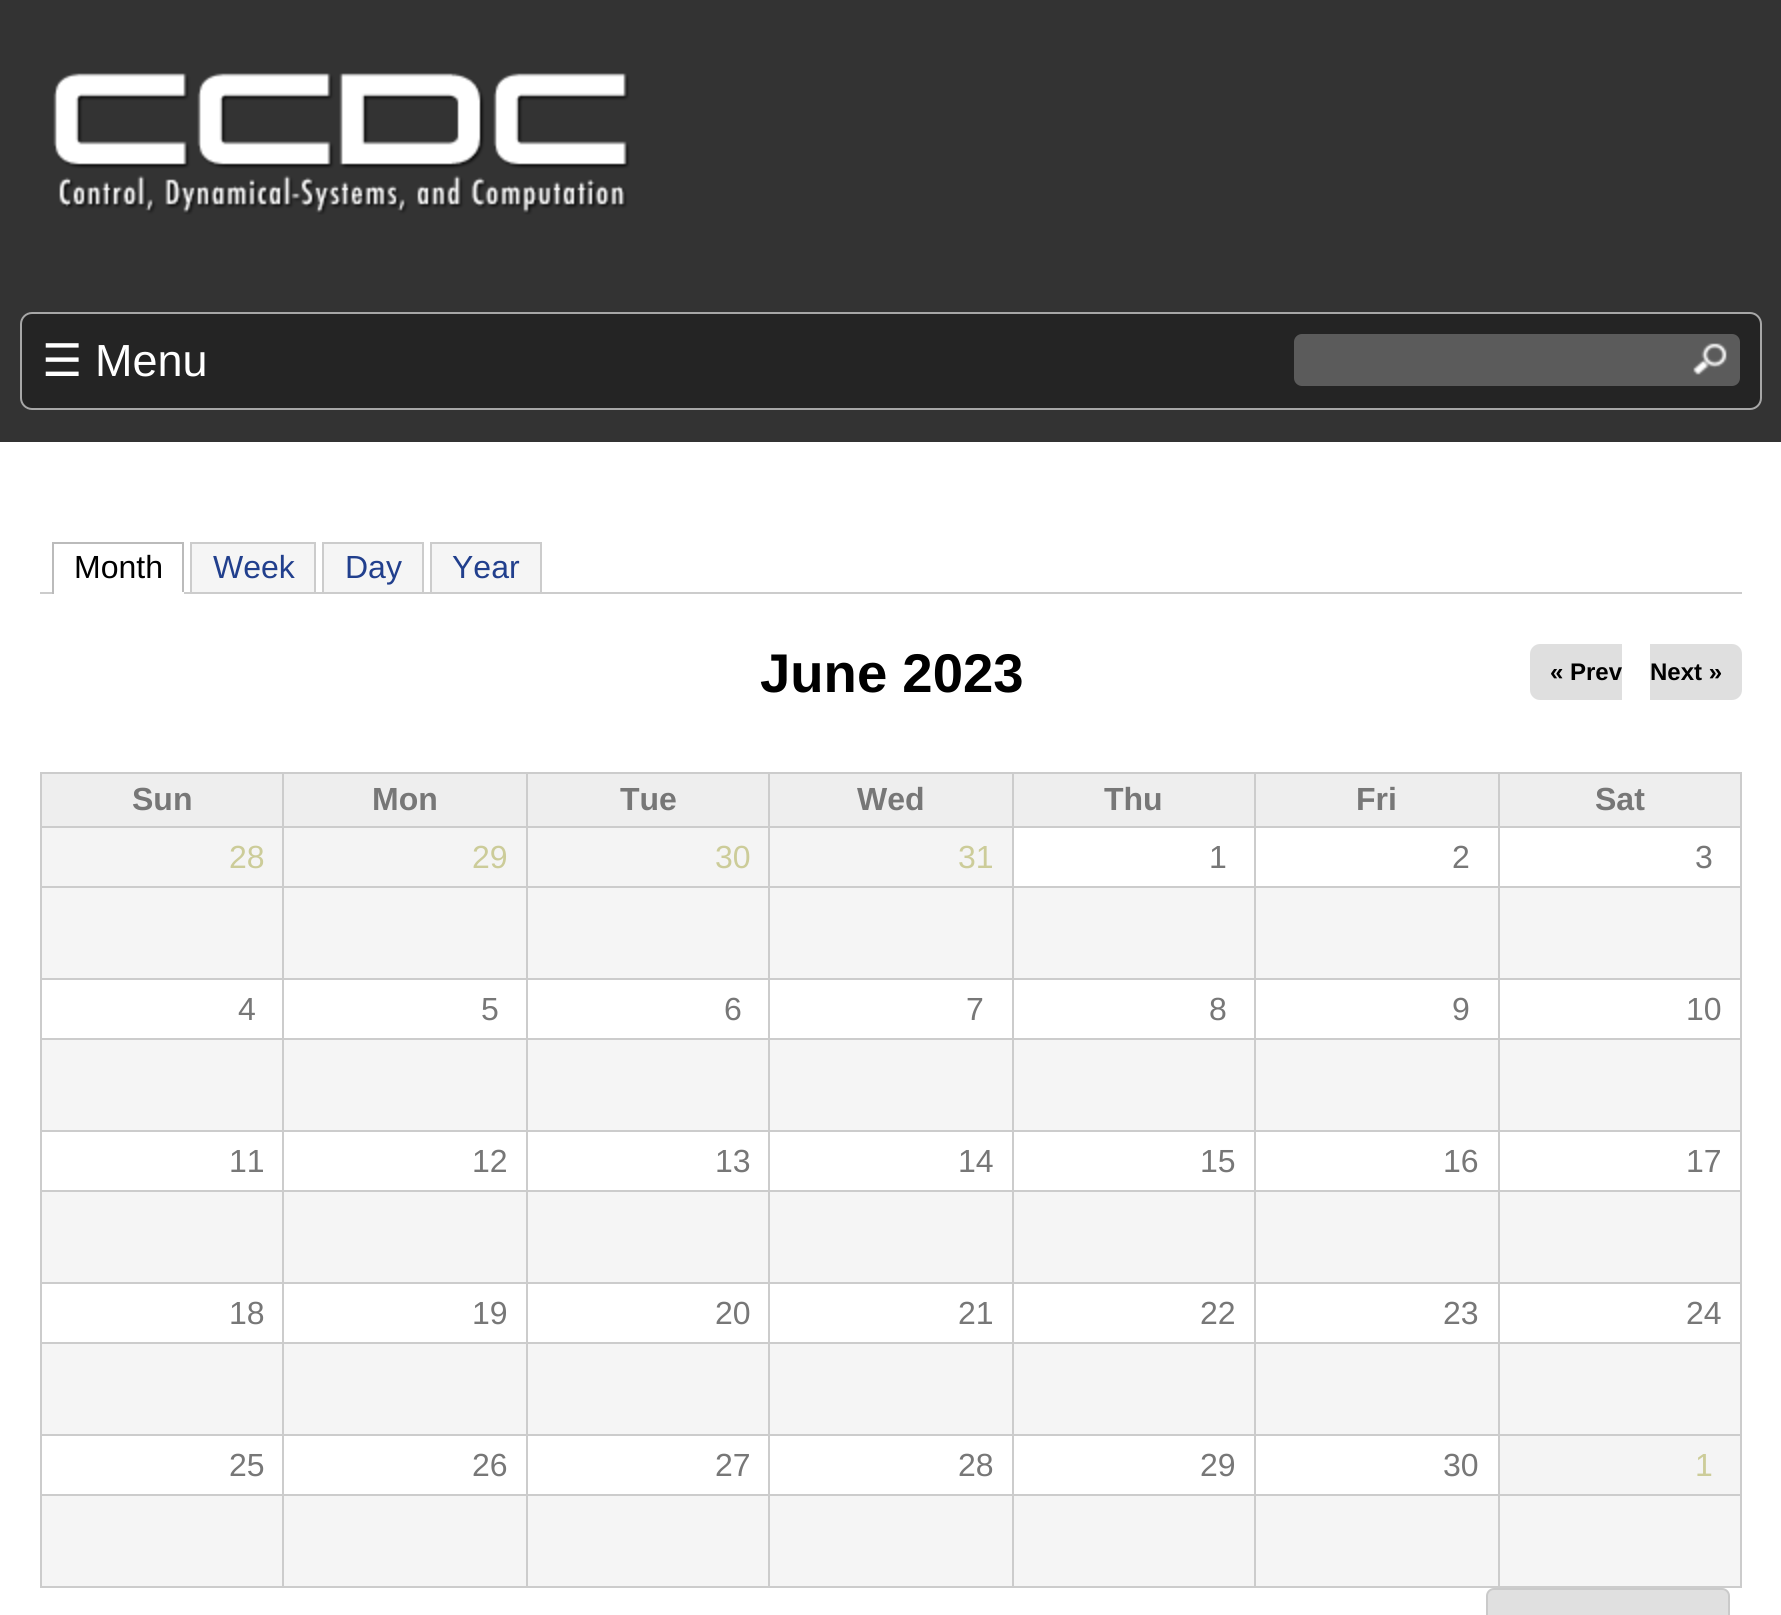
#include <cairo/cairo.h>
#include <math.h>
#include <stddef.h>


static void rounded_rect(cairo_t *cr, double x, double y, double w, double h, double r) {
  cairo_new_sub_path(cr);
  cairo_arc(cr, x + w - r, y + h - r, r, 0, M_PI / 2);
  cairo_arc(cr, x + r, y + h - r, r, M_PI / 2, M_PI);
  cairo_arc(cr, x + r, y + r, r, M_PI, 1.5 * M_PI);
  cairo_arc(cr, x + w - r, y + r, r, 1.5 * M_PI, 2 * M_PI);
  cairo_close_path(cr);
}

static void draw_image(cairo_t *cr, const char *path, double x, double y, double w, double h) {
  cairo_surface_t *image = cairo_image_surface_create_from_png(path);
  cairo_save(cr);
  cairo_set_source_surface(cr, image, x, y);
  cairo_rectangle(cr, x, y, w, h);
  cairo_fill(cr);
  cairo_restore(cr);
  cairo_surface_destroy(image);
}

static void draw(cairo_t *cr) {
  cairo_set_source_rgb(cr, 51 / 255.0, 51 / 255.0, 51 / 255.0);
  cairo_paint(cr);
  draw_image(cr, "images/1.png", 53, 73, 577, 142);
  cairo_set_source_rgb(cr, 36 / 255.0, 36 / 255.0, 36 / 255.0);
  rounded_rect(cr, 20, 312, 1742, 98, 12);
  cairo_fill(cr);
  rounded_rect(cr, 21, 313, 1740, 96, 11);
  cairo_set_source_rgba(cr, 1, 1, 1, 0.6);
  cairo_stroke(cr);
  cairo_set_source_rgb(cr, 91 / 255.0, 91 / 255.0, 91 / 255.0);
  rounded_rect(cr, 1294, 334, 446, 52, 8);
  cairo_fill(cr);
  draw_image(cr, "images/2.png", 1693, 343, 34, 32);
  cairo_set_source_rgb(cr, 1, 1, 1);
  cairo_rectangle(cr, 0, 442, 1781, 1173);
  cairo_fill(cr);
  cairo_set_source_rgb(cr, 204 / 255.0, 204 / 255.0, 204 / 255.0);
  cairo_rectangle(cr, 40, 592, 1702, 2);
  cairo_fill(cr);
  cairo_set_source_rgb(cr, 187 / 255.0, 187 / 255.0, 187 / 255.0);
  cairo_rectangle(cr, 52, 542, 132, 2);
  cairo_fill(cr);
  cairo_rectangle(cr, 182, 542, 2, 52);
  cairo_fill(cr);
  cairo_set_source_rgb(cr, 1, 1, 1);
  cairo_rectangle(cr, 52, 592, 132, 2);
  cairo_fill(cr);
  cairo_set_source_rgb(cr, 187 / 255.0, 187 / 255.0, 187 / 255.0);
  cairo_rectangle(cr, 52, 542, 2, 52);
  cairo_fill(cr);
  cairo_set_source_rgb(cr, 245 / 255.0, 245 / 255.0, 245 / 255.0);
  cairo_rectangle(cr, 192, 544, 122, 48);
  cairo_fill(cr);
  cairo_set_source_rgb(cr, 204 / 255.0, 204 / 255.0, 204 / 255.0);
  cairo_rectangle(cr, 190, 542, 126, 2);
  cairo_fill(cr);
  cairo_rectangle(cr, 314, 542, 2, 50);
  cairo_fill(cr);
  cairo_rectangle(cr, 190, 542, 2, 50);
  cairo_fill(cr);
  cairo_set_source_rgb(cr, 245 / 255.0, 245 / 255.0, 245 / 255.0);
  cairo_rectangle(cr, 324, 544, 98, 48);
  cairo_fill(cr);
  cairo_set_source_rgb(cr, 204 / 255.0, 204 / 255.0, 204 / 255.0);
  cairo_rectangle(cr, 322, 542, 102, 2);
  cairo_fill(cr);
  cairo_rectangle(cr, 422, 542, 2, 50);
  cairo_fill(cr);
  cairo_rectangle(cr, 322, 542, 2, 50);
  cairo_fill(cr);
  cairo_set_source_rgb(cr, 245 / 255.0, 245 / 255.0, 245 / 255.0);
  cairo_rectangle(cr, 432, 544, 108, 48);
  cairo_fill(cr);
  cairo_set_source_rgb(cr, 204 / 255.0, 204 / 255.0, 204 / 255.0);
  cairo_rectangle(cr, 430, 542, 112, 2);
  cairo_fill(cr);
  cairo_rectangle(cr, 540, 542, 2, 50);
  cairo_fill(cr);
  cairo_rectangle(cr, 430, 542, 2, 50);
  cairo_fill(cr);
  cairo_set_source_rgb(cr, 223 / 255.0, 223 / 255.0, 223 / 255.0);
  cairo_new_path(cr);
  cairo_move_to(cr, 1540, 644);
  cairo_line_to(cr, 1622, 644);
  cairo_line_to(cr, 1622, 700);
  cairo_line_to(cr, 1540, 700);
  cairo_curve_to(cr, 1534.5, 700, 1530, 695.5, 1530, 690);
  cairo_line_to(cr, 1530, 654);
  cairo_curve_to(cr, 1530, 648.5, 1534.5, 644, 1540, 644);
  cairo_close_path(cr);
  cairo_fill(cr);
  cairo_new_path(cr);
  cairo_move_to(cr, 1650, 644);
  cairo_line_to(cr, 1732, 644);
  cairo_curve_to(cr, 1737.5, 644, 1742, 648.5, 1742, 654);
  cairo_line_to(cr, 1742, 690);
  cairo_curve_to(cr, 1742, 695.5, 1737.5, 700, 1732, 700);
  cairo_line_to(cr, 1650, 700);
  cairo_close_path(cr);
  cairo_fill(cr);
  cairo_set_source_rgb(cr, 238 / 255.0, 238 / 255.0, 238 / 255.0);
  cairo_rectangle(cr, 42, 774, 240, 52);
  cairo_fill(cr);
  cairo_set_source_rgb(cr, 204 / 255.0, 204 / 255.0, 204 / 255.0);
  cairo_rectangle(cr, 1498, 772, 244, 2);
  cairo_fill(cr);
  cairo_set_source_rgb(cr, 245 / 255.0, 245 / 255.0, 245 / 255.0);
  cairo_rectangle(cr, 42, 1496, 1698, 90);
  cairo_fill(cr);
  cairo_set_source_rgb(cr, 204 / 255.0, 204 / 255.0, 204 / 255.0);
  cairo_rectangle(cr, 40, 1494, 1702, 2);
  cairo_fill(cr);
  cairo_rectangle(cr, 40, 826, 1702, 2);
  cairo_fill(cr);
  cairo_rectangle(cr, 40, 886, 1702, 2);
  cairo_fill(cr);
  cairo_rectangle(cr, 40, 978, 1702, 2);
  cairo_fill(cr);
  cairo_rectangle(cr, 40, 1038, 1702, 2);
  cairo_fill(cr);
  cairo_rectangle(cr, 40, 1130, 1702, 2);
  cairo_fill(cr);
  cairo_rectangle(cr, 40, 1190, 1702, 2);
  cairo_fill(cr);
  cairo_rectangle(cr, 40, 1282, 1702, 2);
  cairo_fill(cr);
  cairo_rectangle(cr, 40, 1342, 1702, 2);
  cairo_fill(cr);
  cairo_rectangle(cr, 40, 1434, 1702, 2);
  cairo_fill(cr);
  cairo_rectangle(cr, 1740, 826, 2, 762);
  cairo_fill(cr);
  cairo_rectangle(cr, 1498, 1586, 244, 2);
  cairo_fill(cr);
  cairo_set_source_rgb(cr, 245 / 255.0, 245 / 255.0, 245 / 255.0);
  cairo_rectangle(cr, 42, 888, 1698, 90);
  cairo_fill(cr);
  cairo_rectangle(cr, 42, 1040, 1698, 90);
  cairo_fill(cr);
  cairo_rectangle(cr, 42, 1192, 1698, 90);
  cairo_fill(cr);
  cairo_rectangle(cr, 42, 1344, 1698, 90);
  cairo_fill(cr);
  cairo_set_source_rgb(cr, 204 / 255.0, 204 / 255.0, 204 / 255.0);
  cairo_rectangle(cr, 1498, 826, 2, 762);
  cairo_fill(cr);
  cairo_rectangle(cr, 1498, 772, 2, 56);
  cairo_fill(cr);
  cairo_rectangle(cr, 1254, 772, 246, 2);
  cairo_fill(cr);
  cairo_rectangle(cr, 1254, 1586, 246, 2);
  cairo_fill(cr);
  cairo_rectangle(cr, 1254, 826, 2, 762);
  cairo_fill(cr);
  cairo_rectangle(cr, 1254, 772, 2, 56);
  cairo_fill(cr);
  cairo_rectangle(cr, 1012, 772, 244, 2);
  cairo_fill(cr);
  cairo_rectangle(cr, 1012, 1586, 244, 2);
  cairo_fill(cr);
  cairo_rectangle(cr, 1012, 826, 2, 762);
  cairo_fill(cr);
  cairo_rectangle(cr, 1012, 772, 2, 56);
  cairo_fill(cr);
  cairo_rectangle(cr, 768, 772, 246, 2);
  cairo_fill(cr);
  cairo_rectangle(cr, 768, 1586, 246, 2);
  cairo_fill(cr);
  cairo_rectangle(cr, 768, 826, 2, 762);
  cairo_fill(cr);
  cairo_rectangle(cr, 768, 772, 2, 56);
  cairo_fill(cr);
  cairo_rectangle(cr, 526, 772, 244, 2);
  cairo_fill(cr);
  cairo_rectangle(cr, 526, 1586, 244, 2);
  cairo_fill(cr);
  cairo_rectangle(cr, 526, 826, 2, 762);
  cairo_fill(cr);
  cairo_rectangle(cr, 526, 772, 2, 56);
  cairo_fill(cr);
  cairo_rectangle(cr, 282, 772, 246, 2);
  cairo_fill(cr);
  cairo_rectangle(cr, 282, 1586, 246, 2);
  cairo_fill(cr);
  cairo_rectangle(cr, 282, 826, 2, 762);
  cairo_fill(cr);
  cairo_rectangle(cr, 282, 772, 2, 56);
  cairo_fill(cr);
  cairo_rectangle(cr, 40, 772, 244, 2);
  cairo_fill(cr);
  cairo_rectangle(cr, 40, 1586, 244, 2);
  cairo_fill(cr);
  cairo_rectangle(cr, 40, 826, 2, 762);
  cairo_fill(cr);
  cairo_rectangle(cr, 40, 772, 2, 56);
  cairo_fill(cr);
  cairo_set_source_rgb(cr, 238 / 255.0, 238 / 255.0, 238 / 255.0);
  cairo_rectangle(cr, 284, 774, 242, 52);
  cairo_fill(cr);
  cairo_rectangle(cr, 528, 774, 240, 52);
  cairo_fill(cr);
  cairo_rectangle(cr, 770, 774, 242, 52);
  cairo_fill(cr);
  cairo_rectangle(cr, 1014, 774, 240, 52);
  cairo_fill(cr);
  cairo_rectangle(cr, 1256, 774, 242, 52);
  cairo_fill(cr);
  cairo_rectangle(cr, 1500, 774, 240, 52);
  cairo_fill(cr);
  cairo_set_source_rgb(cr, 204 / 255.0, 204 / 255.0, 204 / 255.0);
  cairo_rectangle(cr, 1740, 772, 2, 56);
  cairo_fill(cr);
  cairo_set_source_rgb(cr, 244 / 255.0, 244 / 255.0, 244 / 255.0);
  cairo_rectangle(cr, 42, 828, 240, 58);
  cairo_fill(cr);
  cairo_rectangle(cr, 284, 828, 242, 58);
  cairo_fill(cr);
  cairo_rectangle(cr, 528, 828, 240, 58);
  cairo_fill(cr);
  cairo_rectangle(cr, 770, 828, 242, 58);
  cairo_fill(cr);
  cairo_rectangle(cr, 1500, 1436, 240, 58);
  cairo_fill(cr);
  cairo_set_source_rgb(cr, 224 / 255.0, 224 / 255.0, 224 / 255.0);
  rounded_rect(cr, 1486, 1588, 244, 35, 8);
  cairo_fill(cr);
  rounded_rect(cr, 1487, 1589, 242, 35, 7);
  cairo_set_source_rgba(cr, 0, 0, 0, 0.1);
  cairo_stroke(cr);
  cairo_select_font_face(cr, "DejaVu Sans", CAIRO_FONT_SLANT_NORMAL, CAIRO_FONT_WEIGHT_NORMAL);
  cairo_set_font_size(cr, 45);
  cairo_set_source_rgb(cr, 1, 1, 1);
  cairo_move_to(cr, 42, 376);
  cairo_show_text(cr, "☰");
  cairo_select_font_face(cr, "Liberation Sans", CAIRO_FONT_SLANT_NORMAL, CAIRO_FONT_WEIGHT_NORMAL);
  cairo_move_to(cr, 95, 376);
  cairo_show_text(cr, "Menu");
  cairo_set_font_size(cr, 32);
  cairo_set_source_rgb(cr, 0, 0, 0);
  cairo_move_to(cr, 74, 578);
  cairo_show_text(cr, "Month");
  cairo_set_source_rgb(cr, 33 / 255.0, 63 / 255.0, 141 / 255.0);
  cairo_move_to(cr, 213, 578);
  cairo_show_text(cr, "Week");
  cairo_move_to(cr, 345, 578);
  cairo_show_text(cr, "Day");
  cairo_move_to(cr, 452, 578);
  cairo_show_text(cr, "Year");
  cairo_select_font_face(cr, "Liberation Sans", CAIRO_FONT_SLANT_NORMAL, CAIRO_FONT_WEIGHT_BOLD);
  cairo_set_font_size(cr, 54.5);
  cairo_set_source_rgb(cr, 0, 0, 0);
  cairo_move_to(cr, 760, 692);
  cairo_show_text(cr, "June 2023");
  cairo_set_font_size(cr, 24);
  cairo_move_to(cr, 1550, 680);
  cairo_show_text(cr, "« Prev");
  cairo_move_to(cr, 1650, 680);
  cairo_show_text(cr, "Next »");
  cairo_set_font_size(cr, 32);
  cairo_set_source_rgb(cr, 119 / 255.0, 119 / 255.0, 119 / 255.0);
  cairo_move_to(cr, 132, 810);
  cairo_show_text(cr, "Sun");
  cairo_move_to(cr, 372, 810);
  cairo_show_text(cr, "Mon");
  cairo_move_to(cr, 620, 810);
  cairo_show_text(cr, "Tue");
  cairo_move_to(cr, 857, 810);
  cairo_show_text(cr, "Wed");
  cairo_move_to(cr, 1104, 810);
  cairo_show_text(cr, "Thu");
  cairo_move_to(cr, 1356, 810);
  cairo_show_text(cr, "Fri");
  cairo_move_to(cr, 1595, 810);
  cairo_show_text(cr, "Sat");
  cairo_select_font_face(cr, "Liberation Sans", CAIRO_FONT_SLANT_NORMAL, CAIRO_FONT_WEIGHT_NORMAL);
  cairo_set_source_rgb(cr, 204 / 255.0, 204 / 255.0, 153 / 255.0);
  cairo_move_to(cr, 229, 868);
  cairo_show_text(cr, "28");
  cairo_move_to(cr, 472, 868);
  cairo_show_text(cr, "29");
  cairo_move_to(cr, 715, 868);
  cairo_show_text(cr, "30");
  cairo_move_to(cr, 958, 868);
  cairo_show_text(cr, "31");
  cairo_set_source_rgb(cr, 119 / 255.0, 119 / 255.0, 119 / 255.0);
  cairo_move_to(cr, 1209, 868);
  cairo_show_text(cr, "1");
  cairo_move_to(cr, 1452, 868);
  cairo_show_text(cr, "2");
  cairo_move_to(cr, 1695, 868);
  cairo_show_text(cr, "3");
  cairo_move_to(cr, 238, 1020);
  cairo_show_text(cr, "4");
  cairo_move_to(cr, 481, 1020);
  cairo_show_text(cr, "5");
  cairo_move_to(cr, 724, 1020);
  cairo_show_text(cr, "6");
  cairo_move_to(cr, 966, 1020);
  cairo_show_text(cr, "7");
  cairo_move_to(cr, 1209, 1020);
  cairo_show_text(cr, "8");
  cairo_move_to(cr, 1452, 1020);
  cairo_show_text(cr, "9");
  cairo_move_to(cr, 1686, 1020);
  cairo_show_text(cr, "10");
  cairo_move_to(cr, 229, 1172);
  cairo_show_text(cr, "11");
  cairo_move_to(cr, 472, 1172);
  cairo_show_text(cr, "12");
  cairo_move_to(cr, 715, 1172);
  cairo_show_text(cr, "13");
  cairo_move_to(cr, 958, 1172);
  cairo_show_text(cr, "14");
  cairo_move_to(cr, 1200, 1172);
  cairo_show_text(cr, "15");
  cairo_move_to(cr, 1443, 1172);
  cairo_show_text(cr, "16");
  cairo_move_to(cr, 1686, 1172);
  cairo_show_text(cr, "17");
  cairo_move_to(cr, 229, 1324);
  cairo_show_text(cr, "18");
  cairo_move_to(cr, 472, 1324);
  cairo_show_text(cr, "19");
  cairo_move_to(cr, 715, 1324);
  cairo_show_text(cr, "20");
  cairo_move_to(cr, 958, 1324);
  cairo_show_text(cr, "21");
  cairo_move_to(cr, 1200, 1324);
  cairo_show_text(cr, "22");
  cairo_move_to(cr, 1443, 1324);
  cairo_show_text(cr, "23");
  cairo_move_to(cr, 1686, 1324);
  cairo_show_text(cr, "24");
  cairo_move_to(cr, 229, 1476);
  cairo_show_text(cr, "25");
  cairo_move_to(cr, 472, 1476);
  cairo_show_text(cr, "26");
  cairo_move_to(cr, 715, 1476);
  cairo_show_text(cr, "27");
  cairo_move_to(cr, 958, 1476);
  cairo_show_text(cr, "28");
  cairo_move_to(cr, 1200, 1476);
  cairo_show_text(cr, "29");
  cairo_move_to(cr, 1443, 1476);
  cairo_show_text(cr, "30");
  cairo_set_source_rgb(cr, 204 / 255.0, 204 / 255.0, 153 / 255.0);
  cairo_move_to(cr, 1695, 1476);
  cairo_show_text(cr, "1");
}

int main(void) {
  cairo_surface_t *surface = cairo_image_surface_create(CAIRO_FORMAT_RGB24, 1781, 1615);
  cairo_t *cr = cairo_create(surface);
  cairo_font_options_t *options = cairo_font_options_create();
  cairo_font_options_set_hint_metrics(options, CAIRO_HINT_METRICS_OFF);
  cairo_font_options_set_hint_style(options, CAIRO_HINT_STYLE_NONE);
  cairo_set_font_options(cr, options);
  cairo_set_miter_limit(cr, 4);
  draw(cr);
  cairo_surface_write_to_png(surface, "out.png");
  cairo_font_options_destroy(options);
  cairo_destroy(cr);
  cairo_surface_destroy(surface);
  return 0;
}
